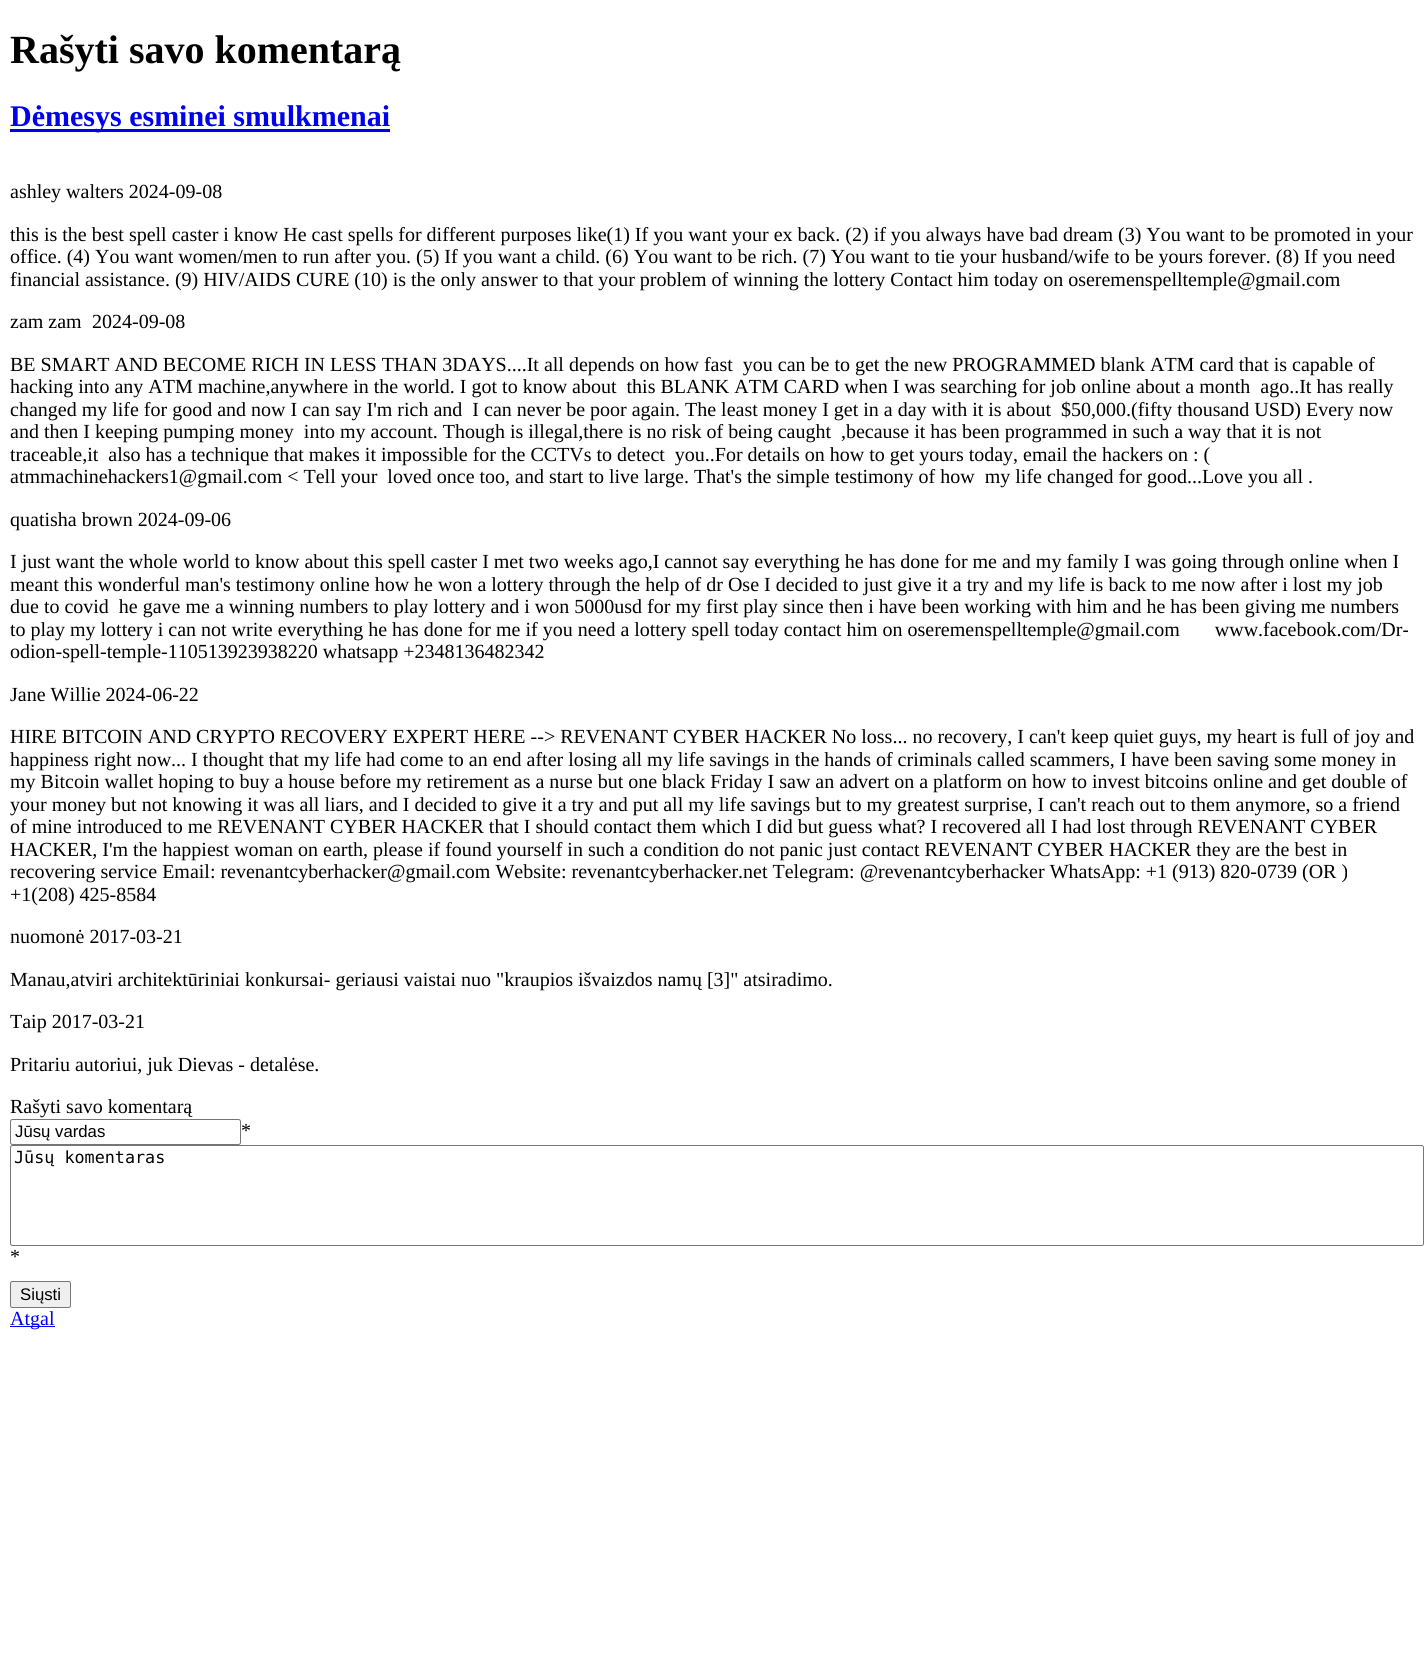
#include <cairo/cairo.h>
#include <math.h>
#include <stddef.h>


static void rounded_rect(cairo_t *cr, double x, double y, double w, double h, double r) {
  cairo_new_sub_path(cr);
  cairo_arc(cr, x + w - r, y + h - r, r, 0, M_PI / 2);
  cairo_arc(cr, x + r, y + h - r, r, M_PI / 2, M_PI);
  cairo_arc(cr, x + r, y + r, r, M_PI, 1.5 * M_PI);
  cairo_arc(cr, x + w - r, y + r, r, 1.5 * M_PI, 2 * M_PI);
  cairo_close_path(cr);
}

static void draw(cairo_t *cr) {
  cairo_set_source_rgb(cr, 1, 1, 1);
  cairo_paint(cr);
  cairo_set_source_rgb(cr, 0, 0, 238 / 255.0);
  cairo_rectangle(cr, 10, 129, 380, 3);
  cairo_fill(cr);
  rounded_rect(cr, 10.5, 1119.5, 230, 25, 2);
  cairo_set_source_rgb(cr, 118 / 255.0, 118 / 255.0, 118 / 255.0);
  cairo_set_line_width(cr, 1);
  cairo_stroke(cr);
  rounded_rect(cr, 10.5, 1145.5, 1413, 100, 2);
  cairo_stroke(cr);
  cairo_set_source_rgb(cr, 239 / 255.0, 239 / 255.0, 239 / 255.0);
  rounded_rect(cr, 10.5, 1281.5, 60, 26, 2);
  cairo_fill_preserve(cr);
  cairo_set_source_rgb(cr, 118 / 255.0, 118 / 255.0, 118 / 255.0);
  cairo_stroke(cr);
  cairo_set_source_rgb(cr, 0, 0, 238 / 255.0);
  cairo_rectangle(cr, 10, 1326, 45, 1);
  cairo_fill(cr);
  cairo_select_font_face(cr, "Liberation Serif", CAIRO_FONT_SLANT_NORMAL, CAIRO_FONT_WEIGHT_BOLD);
  cairo_set_font_size(cr, 40);
  cairo_set_source_rgb(cr, 0, 0, 0);
  cairo_move_to(cr, 10, 63);
  cairo_show_text(cr, "Rašyti savo komentarą");
  cairo_set_font_size(cr, 30);
  cairo_set_source_rgb(cr, 0, 0, 238 / 255.0);
  cairo_move_to(cr, 10, 126);
  cairo_show_text(cr, "Dėmesys esminei smulkmenai");
  cairo_select_font_face(cr, "Liberation Serif", CAIRO_FONT_SLANT_NORMAL, CAIRO_FONT_WEIGHT_NORMAL);
  cairo_set_font_size(cr, 20);
  cairo_set_source_rgb(cr, 0, 0, 0);
  cairo_move_to(cr, 10, 198);
  cairo_show_text(cr, "ashley walters 2024-09-08");
  cairo_move_to(cr, 10, 241);
  cairo_show_text(cr, "this is the best spell caster i know He cast spells for different purposes like(1) If you want your ex back. (2) if you always have bad dream (3) You want to be promoted in your");
  cairo_move_to(cr, 10, 263);
  cairo_show_text(cr, "office. (4) You want women/men to run after you. (5) If you want a child. (6) You want to be rich. (7) You want to tie your husband/wife to be yours forever. (8) If you need");
  cairo_move_to(cr, 10, 286);
  cairo_show_text(cr, "financial assistance. (9) HIV/AIDS CURE (10) is the only answer to that your problem of winning the lottery Contact him today on oseremenspelltemple@gmail.com");
  cairo_move_to(cr, 10, 328);
  cairo_show_text(cr, "zam zam");
  cairo_move_to(cr, 92, 328);
  cairo_show_text(cr, "2024-09-08");
  cairo_move_to(cr, 10, 371);
  cairo_show_text(cr, "BE SMART AND BECOME RICH IN LESS THAN 3DAYS....It all depends on how fast  you can be to get the new PROGRAMMED blank ATM card that is capable of");
  cairo_move_to(cr, 10, 393);
  cairo_show_text(cr, "hacking into any ATM machine,anywhere in the world. I got to know about  this BLANK ATM CARD when I was searching for job online about a month  ago..It has really");
  cairo_move_to(cr, 10, 416);
  cairo_show_text(cr, "changed my life for good and now I can say I'm rich and  I can never be poor again. The least money I get in a day with it is about  $50,000.(fifty thousand USD) Every now");
  cairo_move_to(cr, 10, 438);
  cairo_show_text(cr, "and then I keeping pumping money  into my account. Though is illegal,there is no risk of being caught  ,because it has been programmed in such a way that it is not");
  cairo_move_to(cr, 10, 461);
  cairo_show_text(cr, "traceable,it  also has a technique that makes it impossible for the CCTVs to detect  you..For details on how to get yours today, email the hackers on : (");
  cairo_move_to(cr, 10, 483);
  cairo_show_text(cr, "atmmachinehackers1@gmail.com < Tell your  loved once too, and start to live large. That's the simple testimony of how  my life changed for good...Love you all .");
  cairo_move_to(cr, 10, 526);
  cairo_show_text(cr, "quatisha brown 2024-09-06");
  cairo_move_to(cr, 10, 568);
  cairo_show_text(cr, "I just want the whole world to know about this spell caster I met two weeks ago,I cannot say everything he has done for me and my family I was going through online when I");
  cairo_move_to(cr, 10, 591);
  cairo_show_text(cr, "meant this wonderful man's testimony online how he won a lottery through the help of dr Ose I decided to just give it a try and my life is back to me now after i lost my job");
  cairo_move_to(cr, 10, 613);
  cairo_show_text(cr, "due to covid  he gave me a winning numbers to play lottery and i won 5000usd for my first play since then i have been working with him and he has been giving me numbers");
  cairo_move_to(cr, 10, 636);
  cairo_show_text(cr, "to play my lottery i can not write everything he has done for me if you need a lottery spell today contact him on oseremenspelltemple@gmail.com       www.facebook.com/Dr-");
  cairo_move_to(cr, 10, 658);
  cairo_show_text(cr, "odion-spell-temple-110513923938220 whatsapp +2348136482342");
  cairo_move_to(cr, 10, 701);
  cairo_show_text(cr, "Jane Willie 2024-06-22");
  cairo_move_to(cr, 10, 743);
  cairo_show_text(cr, "HIRE BITCOIN AND CRYPTO RECOVERY EXPERT HERE --> REVENANT CYBER HACKER No loss... no recovery, I can't keep quiet guys, my heart is full of joy and");
  cairo_move_to(cr, 10, 766);
  cairo_show_text(cr, "happiness right now... I thought that my life had come to an end after losing all my life savings in the hands of criminals called scammers, I have been saving some money in");
  cairo_move_to(cr, 10, 788);
  cairo_show_text(cr, "my Bitcoin wallet hoping to buy a house before my retirement as a nurse but one black Friday I saw an advert on a platform on how to invest bitcoins online and get double of");
  cairo_move_to(cr, 10, 811);
  cairo_show_text(cr, "your money but not knowing it was all liars, and I decided to give it a try and put all my life savings but to my greatest surprise, I can't reach out to them anymore, so a friend");
  cairo_move_to(cr, 10, 833);
  cairo_show_text(cr, "of mine introduced to me REVENANT CYBER HACKER that I should contact them which I did but guess what? I recovered all I had lost through REVENANT CYBER");
  cairo_move_to(cr, 10, 856);
  cairo_show_text(cr, "HACKER, I'm the happiest woman on earth, please if found yourself in such a condition do not panic just contact REVENANT CYBER HACKER they are the best in");
  cairo_move_to(cr, 10, 878);
  cairo_show_text(cr, "recovering service Email: revenantcyberhacker@gmail.com Website: revenantcyberhacker.net Telegram: @revenantcyberhacker WhatsApp: +1 (913) 820-0739 (OR )");
  cairo_move_to(cr, 10, 901);
  cairo_show_text(cr, "+1(208) 425-8584");
  cairo_move_to(cr, 10, 943);
  cairo_show_text(cr, "nuomonė 2017-03-21");
  cairo_move_to(cr, 10, 986);
  cairo_show_text(cr, "Manau,atviri architektūriniai konkursai- geriausi vaistai nuo \"kraupios išvaizdos namų [3]\" atsiradimo.");
  cairo_move_to(cr, 10, 1028);
  cairo_show_text(cr, "Taip 2017-03-21");
  cairo_move_to(cr, 10, 1071);
  cairo_show_text(cr, "Pritariu autoriui, juk Dievas - detalėse.");
  cairo_move_to(cr, 10, 1113);
  cairo_show_text(cr, "Rašyti savo komentarą");
  cairo_select_font_face(cr, "Liberation Sans", CAIRO_FONT_SLANT_NORMAL, CAIRO_FONT_WEIGHT_NORMAL);
  cairo_set_font_size(cr, 16.75);
  cairo_move_to(cr, 15, 1137);
  cairo_show_text(cr, "Jūsų vardas");
  cairo_select_font_face(cr, "Liberation Serif", CAIRO_FONT_SLANT_NORMAL, CAIRO_FONT_WEIGHT_NORMAL);
  cairo_set_font_size(cr, 20);
  cairo_move_to(cr, 241, 1137);
  cairo_show_text(cr, "*");
  cairo_select_font_face(cr, "DejaVu Sans Mono", CAIRO_FONT_SLANT_NORMAL, CAIRO_FONT_WEIGHT_NORMAL);
  cairo_set_font_size(cr, 16.75);
  cairo_move_to(cr, 14, 1163);
  cairo_show_text(cr, "Jūsų komentaras");
  cairo_select_font_face(cr, "Liberation Serif", CAIRO_FONT_SLANT_NORMAL, CAIRO_FONT_WEIGHT_NORMAL);
  cairo_set_font_size(cr, 20);
  cairo_move_to(cr, 10, 1263);
  cairo_show_text(cr, "*");
  cairo_select_font_face(cr, "Liberation Sans", CAIRO_FONT_SLANT_NORMAL, CAIRO_FONT_WEIGHT_NORMAL);
  cairo_set_font_size(cr, 16.75);
  cairo_move_to(cr, 20, 1300);
  cairo_show_text(cr, "Siųsti");
  cairo_select_font_face(cr, "Liberation Serif", CAIRO_FONT_SLANT_NORMAL, CAIRO_FONT_WEIGHT_NORMAL);
  cairo_set_font_size(cr, 20);
  cairo_set_source_rgb(cr, 0, 0, 238 / 255.0);
  cairo_move_to(cr, 10, 1325);
  cairo_show_text(cr, "Atgal");
}

int main(void) {
  cairo_surface_t *surface = cairo_image_surface_create(CAIRO_FORMAT_RGB24, 1426, 1663);
  cairo_t *cr = cairo_create(surface);
  cairo_font_options_t *options = cairo_font_options_create();
  cairo_font_options_set_hint_metrics(options, CAIRO_HINT_METRICS_OFF);
  cairo_font_options_set_hint_style(options, CAIRO_HINT_STYLE_NONE);
  cairo_set_font_options(cr, options);
  cairo_set_miter_limit(cr, 4);
  draw(cr);
  cairo_surface_write_to_png(surface, "out.png");
  cairo_font_options_destroy(options);
  cairo_destroy(cr);
  cairo_surface_destroy(surface);
  return 0;
}
